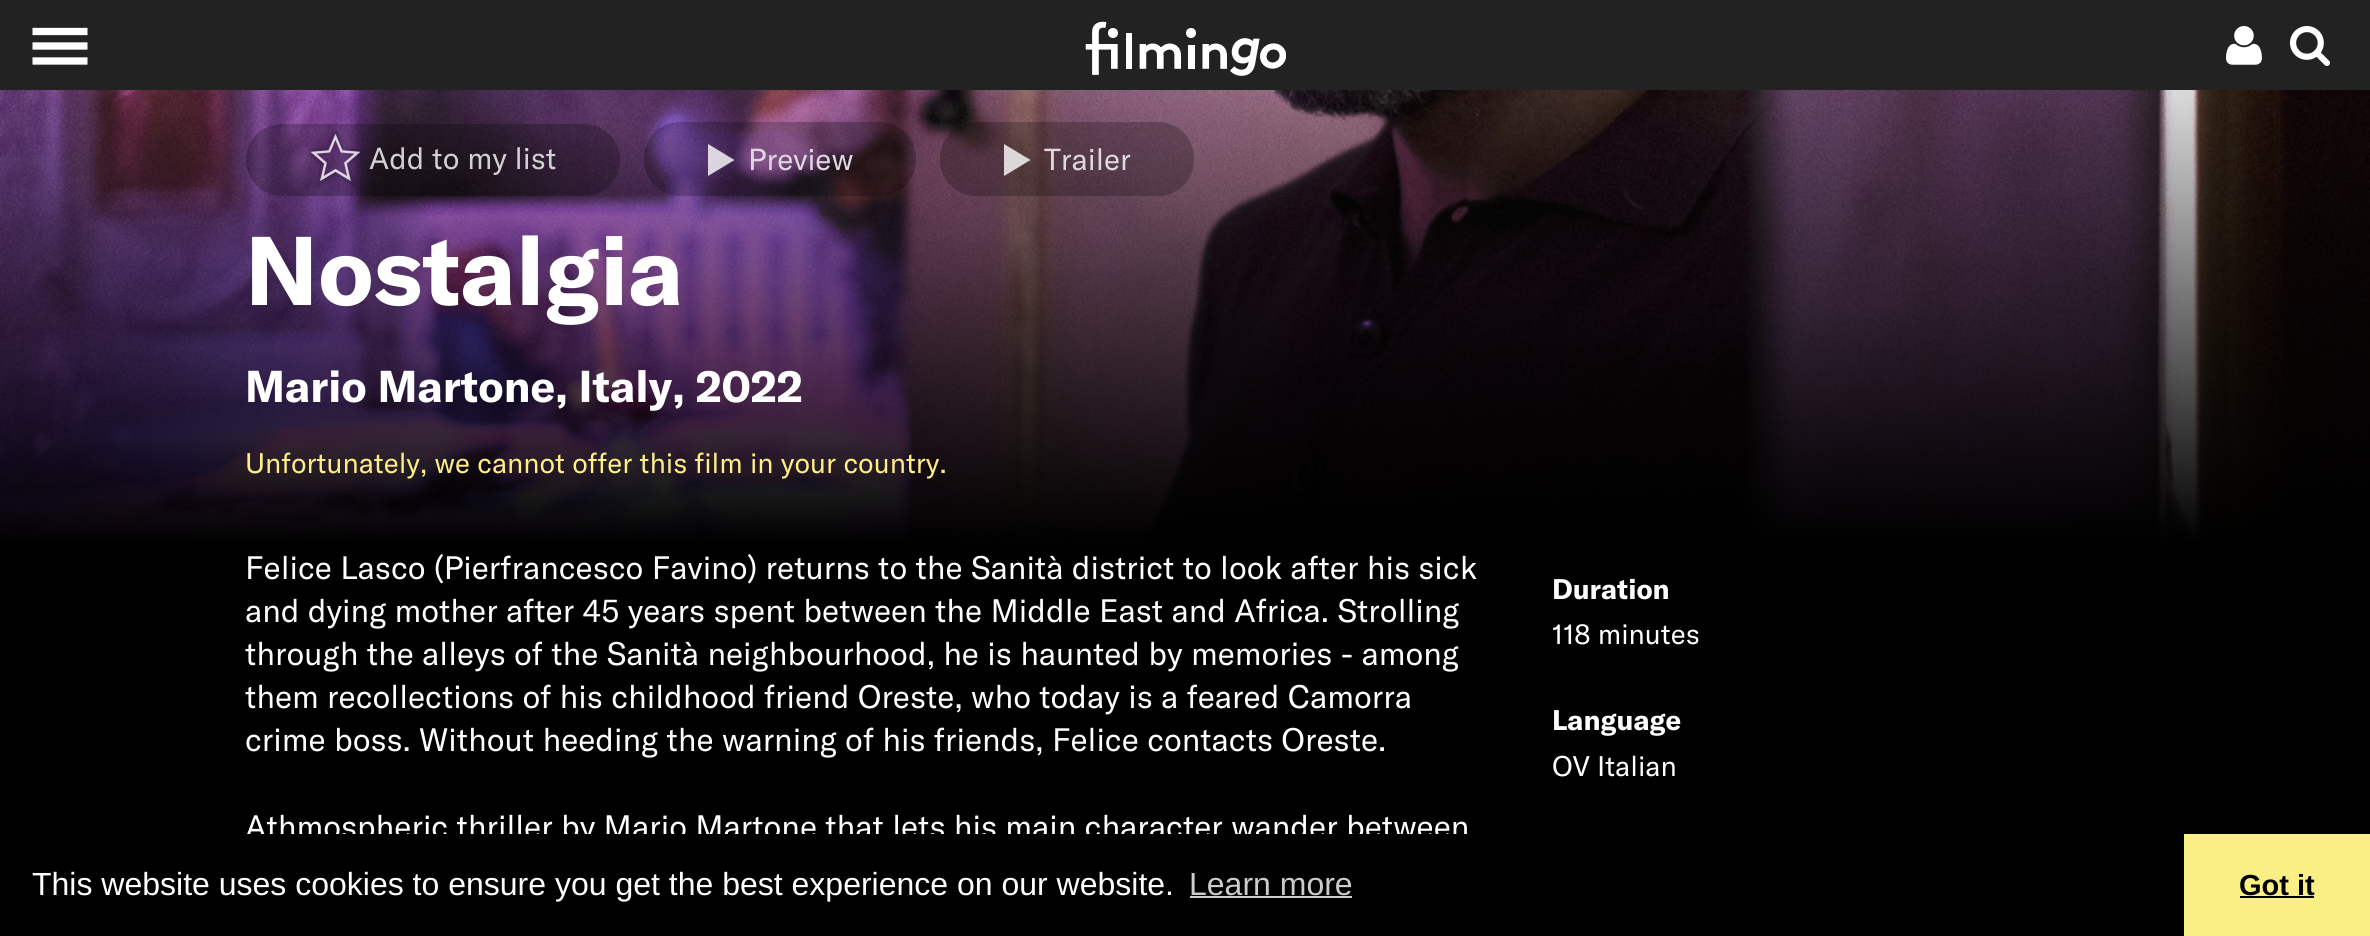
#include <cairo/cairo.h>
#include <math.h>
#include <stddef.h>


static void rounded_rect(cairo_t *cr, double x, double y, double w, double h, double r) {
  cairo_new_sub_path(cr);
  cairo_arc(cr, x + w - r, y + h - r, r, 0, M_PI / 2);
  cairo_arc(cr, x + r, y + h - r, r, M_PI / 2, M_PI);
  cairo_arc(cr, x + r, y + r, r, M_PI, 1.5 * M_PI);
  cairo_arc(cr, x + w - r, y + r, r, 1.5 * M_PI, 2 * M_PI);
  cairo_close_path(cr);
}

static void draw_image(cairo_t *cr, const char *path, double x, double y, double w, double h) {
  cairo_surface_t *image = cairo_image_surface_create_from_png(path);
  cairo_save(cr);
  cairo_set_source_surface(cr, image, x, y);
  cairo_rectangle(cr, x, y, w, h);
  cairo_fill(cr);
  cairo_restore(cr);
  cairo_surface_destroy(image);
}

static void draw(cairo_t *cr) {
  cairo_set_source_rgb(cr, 0, 0, 0);
  cairo_paint(cr);
  cairo_set_source_rgb(cr, 34 / 255.0, 34 / 255.0, 34 / 255.0);
  cairo_rectangle(cr, 0, 0, 2370, 90);
  cairo_fill(cr);
  draw_image(cr, "images/1.png", 2226, 26, 36, 39);
  draw_image(cr, "images/2.png", 2290, 26, 40, 40);
  cairo_new_path(cr);
  cairo_move_to(cr, 32.5, 31.5);
  cairo_line_to(cr, 87.5, 31.5);
  cairo_move_to(cr, 32.5, 46);
  cairo_line_to(cr, 87.5, 46);
  cairo_move_to(cr, 32.5, 61);
  cairo_line_to(cr, 87.5, 61);
  cairo_set_source_rgb(cr, 1, 1, 1);
  cairo_set_line_width(cr, 7.3);
  cairo_stroke(cr);
  cairo_arc(cr, 1113, 33, 5, 0, 2 * M_PI);
  cairo_fill(cr);
  cairo_arc(cr, 1191, 33, 5, 0, 2 * M_PI);
  cairo_fill(cr);
  draw_image(cr, "images/3.png", 1085, 21, 201, 55);
  draw_image(cr, "images/4.png", 0, 90, 2370, 456);
  cairo_set_source_rgba(cr, 0, 0, 0, 0.24);
  rounded_rect(cr, 246, 124, 374, 72, 36);
  cairo_fill(cr);
  draw_image(cr, "images/5.png", 310, 132, 56, 56);
  rounded_rect(cr, 644, 122, 272, 74, 36);
  cairo_fill(cr);
  cairo_set_source_rgba(cr, 1, 1, 1, 0.8);
  cairo_new_path(cr);
  cairo_move_to(cr, 708, 176);
  cairo_line_to(cr, 734.5, 160);
  cairo_line_to(cr, 708, 144);
  cairo_close_path(cr);
  cairo_fill(cr);
  cairo_set_source_rgba(cr, 0, 0, 0, 0.24);
  rounded_rect(cr, 940, 122, 254, 74, 36);
  cairo_fill(cr);
  cairo_set_source_rgba(cr, 1, 1, 1, 0.8);
  cairo_new_path(cr);
  cairo_move_to(cr, 1004, 176);
  cairo_line_to(cr, 1030.5, 160);
  cairo_line_to(cr, 1004, 144);
  cairo_close_path(cr);
  cairo_fill(cr);
  cairo_set_source_rgb(cr, 204 / 255.0, 204 / 255.0, 204 / 255.0);
  cairo_rectangle(cr, 1190, 896, 162, 2);
  cairo_fill(cr);
  cairo_set_source_rgb(cr, 248 / 255.0, 239 / 255.0, 133 / 255.0);
  cairo_rectangle(cr, 2184, 834, 186, 102);
  cairo_fill(cr);
  cairo_set_source_rgb(cr, 0, 0, 0);
  cairo_rectangle(cr, 2240, 896, 74, 2);
  cairo_fill(cr);
  cairo_select_font_face(cr, "GT America", CAIRO_FONT_SLANT_NORMAL, CAIRO_FONT_WEIGHT_NORMAL);
  cairo_set_font_size(cr, 30);
  cairo_set_source_rgb(cr, 211 / 255.0, 208 / 255.0, 211 / 255.0);
  cairo_move_to(cr, 369, 169);
  cairo_show_text(cr, "Add to my list");
  cairo_set_source_rgb(cr, 223 / 255.0, 216 / 255.0, 223 / 255.0);
  cairo_move_to(cr, 748, 170);
  cairo_show_text(cr, "Preview");
  cairo_move_to(cr, 1044, 170);
  cairo_show_text(cr, "Trailer");
  cairo_select_font_face(cr, "GT America", CAIRO_FONT_SLANT_NORMAL, CAIRO_FONT_WEIGHT_BOLD);
  cairo_set_font_size(cr, 96);
  cairo_set_source_rgb(cr, 1, 1, 1);
  cairo_move_to(cr, 245, 305);
  cairo_show_text(cr, "Nostalgia");
  cairo_set_font_size(cr, 44);
  cairo_move_to(cr, 245, 402);
  cairo_show_text(cr, "Mario Martone, Italy, 2022");
  cairo_select_font_face(cr, "GT America", CAIRO_FONT_SLANT_NORMAL, CAIRO_FONT_WEIGHT_NORMAL);
  cairo_set_font_size(cr, 28);
  cairo_set_source_rgb(cr, 1, 239 / 255.0, 133 / 255.0);
  cairo_move_to(cr, 245, 473);
  cairo_show_text(cr, "Unfortunately, we cannot offer this film in your country.");
  cairo_set_font_size(cr, 32);
  cairo_set_source_rgb(cr, 1, 1, 1);
  cairo_move_to(cr, 245, 579);
  cairo_show_text(cr, "Felice Lasco (Pierfrancesco Favino) returns to the Sanità district to look after his sick");
  cairo_move_to(cr, 245, 622);
  cairo_show_text(cr, "and dying mother after 45 years spent between the Middle East and Africa. Strolling");
  cairo_move_to(cr, 245, 665);
  cairo_show_text(cr, "through the alleys of the Sanità neighbourhood, he is haunted by memories - among");
  cairo_move_to(cr, 245, 708);
  cairo_show_text(cr, "them recollections of his childhood friend Oreste, who today is a feared Camorra");
  cairo_move_to(cr, 245, 751);
  cairo_show_text(cr, "crime boss. Without heeding the warning of his friends, Felice contacts Oreste.");
  cairo_move_to(cr, 245, 838);
  cairo_show_text(cr, "Athmospheric thriller by Mario Martone that lets his main character wander between");
  cairo_select_font_face(cr, "GT America", CAIRO_FONT_SLANT_NORMAL, CAIRO_FONT_WEIGHT_BOLD);
  cairo_set_font_size(cr, 28);
  cairo_move_to(cr, 1552, 599);
  cairo_show_text(cr, "Duration");
  cairo_select_font_face(cr, "GT America", CAIRO_FONT_SLANT_NORMAL, CAIRO_FONT_WEIGHT_NORMAL);
  cairo_move_to(cr, 1552, 644);
  cairo_show_text(cr, "118 minutes");
  cairo_select_font_face(cr, "GT America", CAIRO_FONT_SLANT_NORMAL, CAIRO_FONT_WEIGHT_BOLD);
  cairo_move_to(cr, 1552, 730);
  cairo_show_text(cr, "Language");
  cairo_select_font_face(cr, "GT America", CAIRO_FONT_SLANT_NORMAL, CAIRO_FONT_WEIGHT_NORMAL);
  cairo_move_to(cr, 1552, 776);
  cairo_show_text(cr, "OV Italian");
  cairo_set_source_rgb(cr, 0, 0, 0);
  cairo_rectangle(cr, 245, 834, 1222, 11);
  cairo_fill(cr);
  cairo_select_font_face(cr, "Liberation Sans", CAIRO_FONT_SLANT_NORMAL, CAIRO_FONT_WEIGHT_NORMAL);
  cairo_set_font_size(cr, 32);
  cairo_set_source_rgb(cr, 1, 1, 1);
  cairo_move_to(cr, 32, 895);
  cairo_show_text(cr, "This website uses cookies to ensure you get the best experience on our website.");
  cairo_set_source_rgb(cr, 204 / 255.0, 204 / 255.0, 204 / 255.0);
  cairo_move_to(cr, 1189, 895);
  cairo_show_text(cr, "Learn more");
  cairo_select_font_face(cr, "Liberation Sans", CAIRO_FONT_SLANT_NORMAL, CAIRO_FONT_WEIGHT_BOLD);
  cairo_set_font_size(cr, 29);
  cairo_set_source_rgb(cr, 0, 0, 0);
  cairo_move_to(cr, 2239, 895);
  cairo_show_text(cr, "Got it");
}

int main(void) {
  cairo_surface_t *surface = cairo_image_surface_create(CAIRO_FORMAT_RGB24, 2370, 936);
  cairo_t *cr = cairo_create(surface);
  cairo_font_options_t *options = cairo_font_options_create();
  cairo_font_options_set_hint_metrics(options, CAIRO_HINT_METRICS_OFF);
  cairo_font_options_set_hint_style(options, CAIRO_HINT_STYLE_NONE);
  cairo_set_font_options(cr, options);
  cairo_set_miter_limit(cr, 4);
  draw(cr);
  cairo_surface_write_to_png(surface, "out.png");
  cairo_font_options_destroy(options);
  cairo_destroy(cr);
  cairo_surface_destroy(surface);
  return 0;
}
